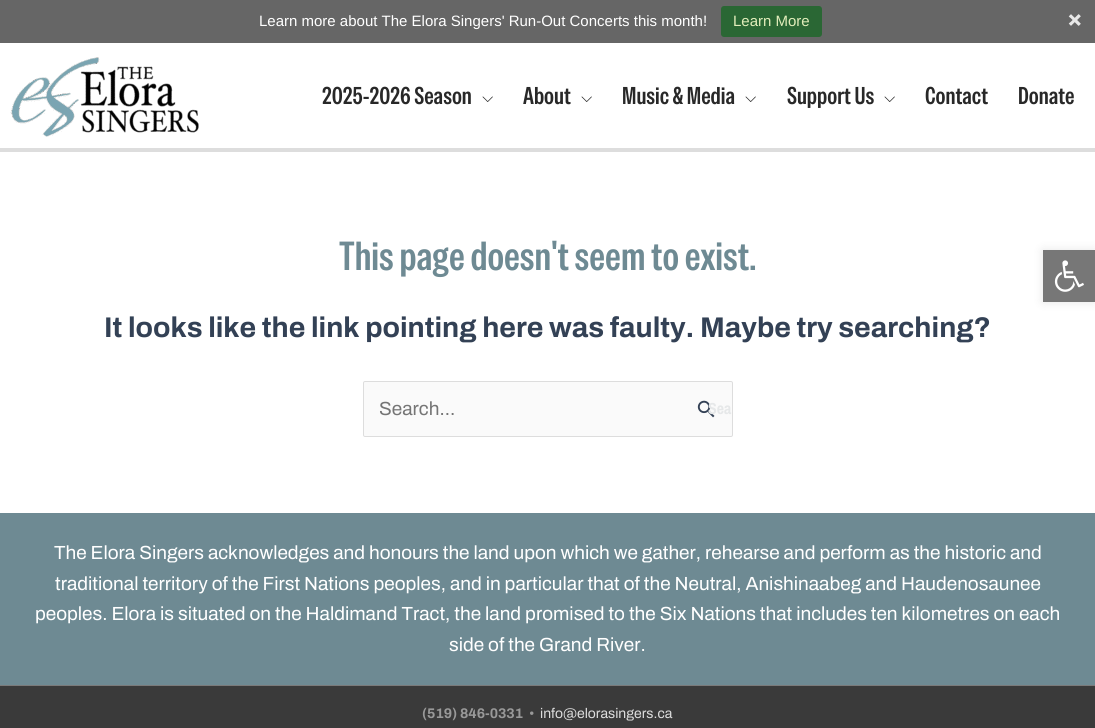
#include <cairo/cairo.h>
#include <math.h>
#include <stddef.h>


static void rounded_rect(cairo_t *cr, double x, double y, double w, double h, double r) {
  cairo_new_sub_path(cr);
  cairo_arc(cr, x + w - r, y + h - r, r, 0, M_PI / 2);
  cairo_arc(cr, x + r, y + h - r, r, M_PI / 2, M_PI);
  cairo_arc(cr, x + r, y + r, r, M_PI, 1.5 * M_PI);
  cairo_arc(cr, x + w - r, y + r, r, 1.5 * M_PI, 2 * M_PI);
  cairo_close_path(cr);
}

static void draw_shadow(cairo_t *cr, double x, double y, double w, double h, double r, double blur, double alpha) {
  cairo_push_group_with_content(cr, CAIRO_CONTENT_ALPHA);
  cairo_set_operator(cr, CAIRO_OPERATOR_SOURCE);
  for (int i = 15; i >= -15 && fmin(w, h) + blur * i / 3 > 0; i -= 2) {
    double e = blur * i / 6;
    cairo_set_source_rgba(cr, 0, 0, 0, alpha * erfc((i - 1) / 8.5) / 2);
    rounded_rect(cr, x - e, y - e, w + 2 * e, h + 2 * e, fmax(0, fmin(r + e + blur * .6, fmin(w, h) / 2 + e)));
    cairo_fill(cr);
  }
  cairo_pattern_t *soft = cairo_pop_group(cr);
  cairo_mask(cr, soft);
  cairo_pattern_destroy(soft);
}

static void draw_image(cairo_t *cr, const char *path, double x, double y, double w, double h) {
  cairo_surface_t *image = cairo_image_surface_create_from_png(path);
  cairo_save(cr);
  cairo_set_source_surface(cr, image, x, y);
  cairo_rectangle(cr, x, y, w, h);
  cairo_fill(cr);
  cairo_restore(cr);
  cairo_surface_destroy(image);
}

static void draw(cairo_t *cr) {
  cairo_set_source_rgb(cr, 1, 1, 1);
  cairo_paint(cr);
  cairo_set_source_rgb(cr, 102 / 255.0, 102 / 255.0, 102 / 255.0);
  cairo_rectangle(cr, 0, 0, 1095, 43);
  cairo_fill(cr);
  cairo_set_source_rgb(cr, 42 / 255.0, 103 / 255.0, 52 / 255.0);
  rounded_rect(cr, 721, 6, 101, 31, 3);
  cairo_fill(cr);
  draw_image(cr, "images/1.png", 1068, 14, 13, 12);
  cairo_set_source_rgb(cr, 221 / 255.0, 221 / 255.0, 221 / 255.0);
  cairo_rectangle(cr, 0, 148, 1095, 4);
  cairo_fill(cr);
  draw_image(cr, "images/2.png", 10, 57, 189, 80);
  draw_image(cr, "images/3.png", 482, 96, 11, 6);
  draw_image(cr, "images/3.png", 581, 96, 11, 6);
  draw_image(cr, "images/3.png", 745, 96, 11, 6);
  draw_image(cr, "images/3.png", 884, 96, 11, 6);
  cairo_set_source_rgb(cr, 250 / 255.0, 250 / 255.0, 250 / 255.0);
  rounded_rect(cr, 363.5, 381.5, 369, 55, 1.5);
  cairo_fill_preserve(cr);
  cairo_set_source_rgb(cr, 221 / 255.0, 221 / 255.0, 221 / 255.0);
  cairo_set_line_width(cr, 1);
  cairo_stroke(cr);
  draw_image(cr, "images/4.png", 697, 400, 18, 18);
  cairo_set_source_rgb(cr, 110 / 255.0, 138 / 255.0, 147 / 255.0);
  cairo_rectangle(cr, 0, 513, 1095, 172);
  cairo_fill(cr);
  cairo_set_source_rgb(cr, 122 / 255.0, 122 / 255.0, 122 / 255.0);
  cairo_rectangle(cr, 0, 685, 1095, 1);
  cairo_fill(cr);
  cairo_set_source_rgb(cr, 58 / 255.0, 58 / 255.0, 58 / 255.0);
  cairo_rectangle(cr, 0, 686, 1095, 42);
  cairo_fill(cr);
  cairo_set_source_rgb(cr, 0, 0, 0);
  draw_shadow(cr, 1043, 250, 52, 52, 0, 5, 0.1);
  cairo_set_source_rgb(cr, 119 / 255.0, 119 / 255.0, 119 / 255.0);
  cairo_rectangle(cr, 1043, 250, 52, 52);
  cairo_fill(cr);
  draw_image(cr, "images/5.png", 1054, 260, 30, 32);
  cairo_select_font_face(cr, "Liberation Sans", CAIRO_FONT_SLANT_NORMAL, CAIRO_FONT_WEIGHT_NORMAL);
  cairo_set_font_size(cr, 15);
  cairo_set_source_rgb(cr, 1, 1, 1);
  cairo_move_to(cr, 259, 26);
  cairo_show_text(cr, "Learn more about The Elora Singers' Run-Out Concerts this month!");
  cairo_set_source_rgb(cr, 226 / 255.0, 237 / 255.0, 187 / 255.0);
  cairo_move_to(cr, 733, 26);
  cairo_show_text(cr, "Learn More");
  cairo_select_font_face(cr, "Special Gothic Condensed One", CAIRO_FONT_SLANT_NORMAL, CAIRO_FONT_WEIGHT_NORMAL);
  cairo_set_font_size(cr, 24);
  cairo_set_source_rgb(cr, 40 / 255.0, 40 / 255.0, 40 / 255.0);
  cairo_move_to(cr, 322, 104);
  cairo_show_text(cr, "2025-2026 Season");
  cairo_move_to(cr, 523, 104);
  cairo_show_text(cr, "About");
  cairo_move_to(cr, 622, 104);
  cairo_show_text(cr, "Music & Media");
  cairo_move_to(cr, 787, 104);
  cairo_show_text(cr, "Support Us");
  cairo_move_to(cr, 925, 104);
  cairo_show_text(cr, "Contact");
  cairo_move_to(cr, 1018, 104);
  cairo_show_text(cr, "Donate");
  cairo_set_font_size(cr, 40);
  cairo_set_source_rgb(cr, 110 / 255.0, 138 / 255.0, 147 / 255.0);
  cairo_move_to(cr, 339, 270);
  cairo_show_text(cr, "This page doesn't seem to exist.");
  cairo_select_font_face(cr, "Archivo", CAIRO_FONT_SLANT_NORMAL, CAIRO_FONT_WEIGHT_BOLD);
  cairo_set_font_size(cr, 28.5);
  cairo_set_source_rgb(cr, 51 / 255.0, 65 / 255.0, 85 / 255.0);
  cairo_move_to(cr, 104, 337);
  cairo_show_text(cr, "It looks like the link pointing here was faulty. Maybe try searching?");
  cairo_select_font_face(cr, "Archivo", CAIRO_FONT_SLANT_NORMAL, CAIRO_FONT_WEIGHT_NORMAL);
  cairo_set_font_size(cr, 19);
  cairo_set_source_rgb(cr, 117 / 255.0, 117 / 255.0, 117 / 255.0);
  cairo_move_to(cr, 379, 415);
  cairo_show_text(cr, "Search...");
  cairo_select_font_face(cr, "Archivo Narrow", CAIRO_FONT_SLANT_NORMAL, CAIRO_FONT_WEIGHT_BOLD);
  cairo_set_font_size(cr, 16);
  cairo_set_source_rgb(cr, 230 / 255.0, 232 / 255.0, 233 / 255.0);
  cairo_move_to(cr, 708, 414);
  cairo_show_text(cr, "Sea");
  cairo_select_font_face(cr, "Archivo", CAIRO_FONT_SLANT_NORMAL, CAIRO_FONT_WEIGHT_NORMAL);
  cairo_set_font_size(cr, 19);
  cairo_set_source_rgb(cr, 1, 1, 1);
  cairo_move_to(cr, 54, 559);
  cairo_show_text(cr, "The Elora Singers acknowledges and honours the land upon which we gather, rehearse and perform as the historic and");
  cairo_move_to(cr, 55, 590);
  cairo_show_text(cr, "traditional territory of the First Nations peoples, and in particular that of the Neutral, Anishinaabeg and Haudenosaunee");
  cairo_move_to(cr, 35, 620);
  cairo_show_text(cr, "peoples. Elora is situated on the Haldimand Tract, the land promised to the Six Nations that includes ten kilometres on each");
  cairo_move_to(cr, 449, 651);
  cairo_show_text(cr, "side of the Grand River.");
  cairo_select_font_face(cr, "Archivo", CAIRO_FONT_SLANT_NORMAL, CAIRO_FONT_WEIGHT_BOLD);
  cairo_set_font_size(cr, 14);
  cairo_set_source_rgb(cr, 153 / 255.0, 153 / 255.0, 153 / 255.0);
  cairo_move_to(cr, 422, 718);
  cairo_show_text(cr, "(519) 846-0331");
  cairo_select_font_face(cr, "Archivo", CAIRO_FONT_SLANT_NORMAL, CAIRO_FONT_WEIGHT_NORMAL);
  cairo_move_to(cr, 529, 718);
  cairo_show_text(cr, "•");
  cairo_set_source_rgb(cr, 221 / 255.0, 221 / 255.0, 221 / 255.0);
  cairo_move_to(cr, 540, 718);
  cairo_show_text(cr, "info@elorasingers.ca");
}

int main(void) {
  cairo_surface_t *surface = cairo_image_surface_create(CAIRO_FORMAT_RGB24, 1095, 728);
  cairo_t *cr = cairo_create(surface);
  cairo_font_options_t *options = cairo_font_options_create();
  cairo_font_options_set_hint_metrics(options, CAIRO_HINT_METRICS_OFF);
  cairo_font_options_set_hint_style(options, CAIRO_HINT_STYLE_NONE);
  cairo_set_font_options(cr, options);
  cairo_set_miter_limit(cr, 4);
  draw(cr);
  cairo_surface_write_to_png(surface, "out.png");
  cairo_font_options_destroy(options);
  cairo_destroy(cr);
  cairo_surface_destroy(surface);
  return 0;
}
